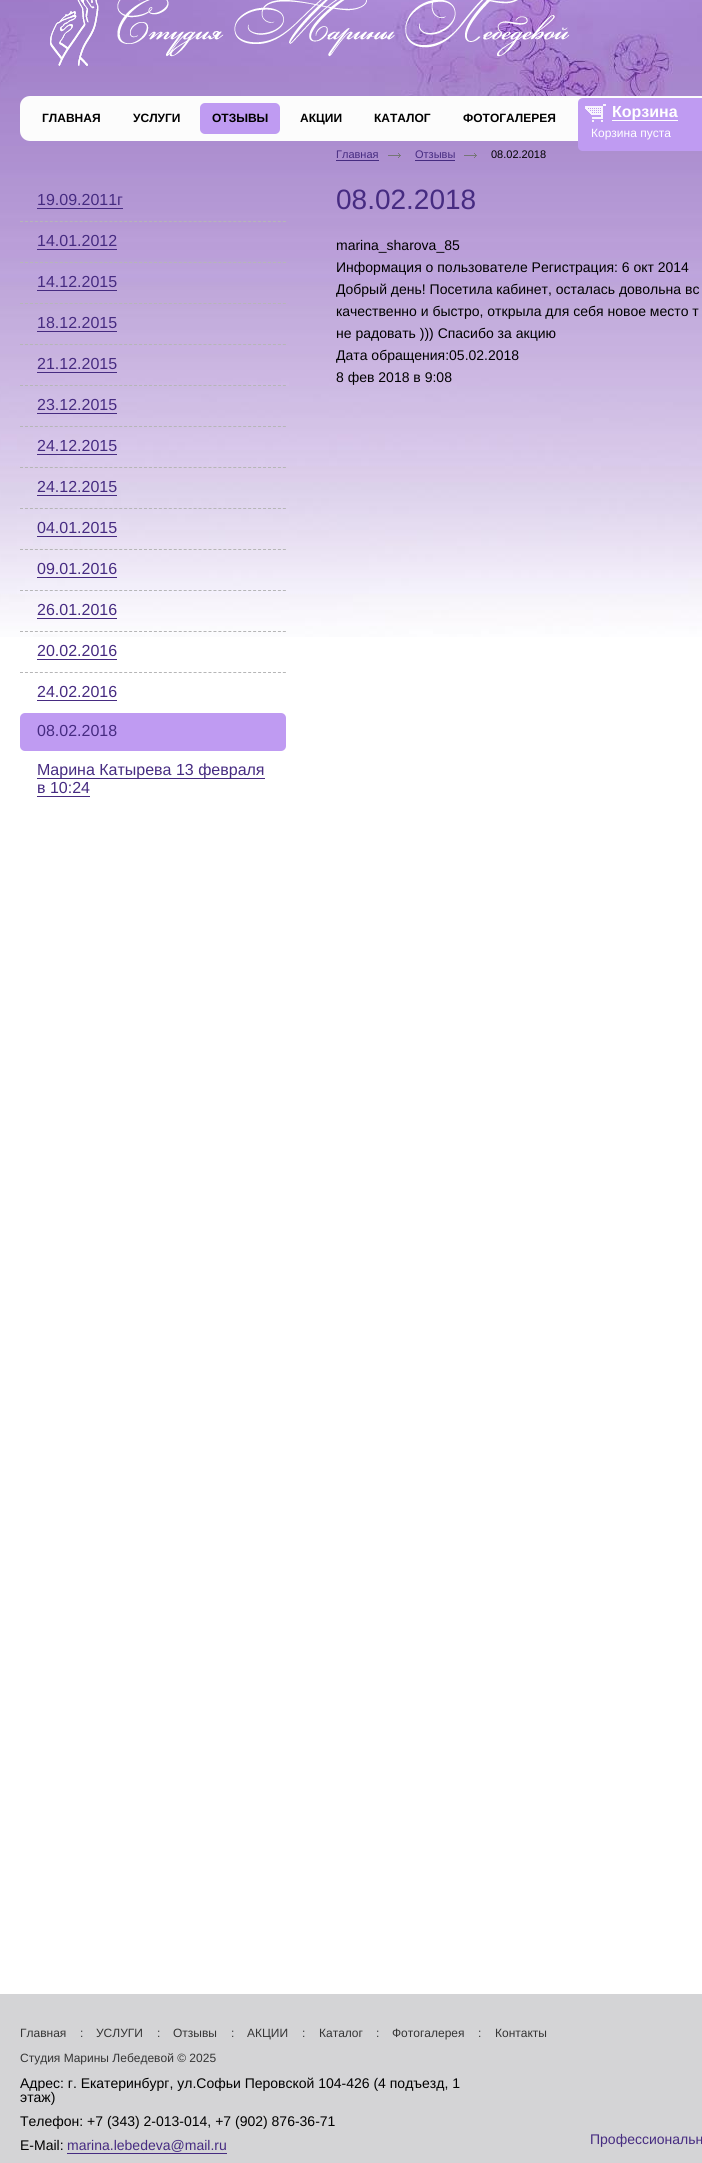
#include <cairo/cairo.h>
#include <math.h>
#include <stddef.h>


static void rounded_rect(cairo_t *cr, double x, double y, double w, double h, double r) {
  cairo_new_sub_path(cr);
  cairo_arc(cr, x + w - r, y + h - r, r, 0, M_PI / 2);
  cairo_arc(cr, x + r, y + h - r, r, M_PI / 2, M_PI);
  cairo_arc(cr, x + r, y + r, r, M_PI, 1.5 * M_PI);
  cairo_arc(cr, x + w - r, y + r, r, 1.5 * M_PI, 2 * M_PI);
  cairo_close_path(cr);
}

static void draw_image(cairo_t *cr, const char *path, double x, double y, double w, double h) {
  cairo_surface_t *image = cairo_image_surface_create_from_png(path);
  cairo_save(cr);
  cairo_set_source_surface(cr, image, x, y);
  cairo_rectangle(cr, x, y, w, h);
  cairo_fill(cr);
  cairo_restore(cr);
  cairo_surface_destroy(image);
}

static void draw(cairo_t *cr) {
  cairo_set_source_rgb(cr, 1, 1, 1);
  cairo_paint(cr);
  draw_image(cr, "images/1.png", 0, 0, 702, 637);
  draw_image(cr, "images/2.png", 50, 0, 520, 66);
  cairo_set_source_rgb(cr, 252 / 255.0, 252 / 255.0, 252 / 255.0);
  rounded_rect(cr, 20, 96, 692, 45, 10);
  cairo_fill(cr);
  cairo_set_source_rgb(cr, 191 / 255.0, 155 / 255.0, 242 / 255.0);
  rounded_rect(cr, 200, 103, 80, 31, 5);
  cairo_fill(cr);
  cairo_new_path(cr);
  cairo_move_to(cr, 583, 98);
  cairo_line_to(cr, 702, 98);
  cairo_line_to(cr, 702, 151);
  cairo_line_to(cr, 583, 151);
  cairo_curve_to(cr, 580, 151, 578, 149, 578, 146);
  cairo_line_to(cr, 578, 103);
  cairo_curve_to(cr, 578, 100, 580, 98, 583, 98);
  cairo_close_path(cr);
  cairo_fill(cr);
  draw_image(cr, "images/3.png", 585, 104, 21, 18);
  cairo_set_source_rgb(cr, 1, 1, 1);
  cairo_rectangle(cr, 612, 120, 66, 1);
  cairo_fill(cr);
  cairo_new_path(cr);
  cairo_move_to(cr, 20, 221.5);
  cairo_line_to(cr, 286, 221.5);
  cairo_set_source_rgb(cr, 182 / 255.0, 182 / 255.0, 183 / 255.0);
  cairo_set_line_width(cr, 1);
  cairo_set_dash(cr, (double[]){3, 1.96}, 2, 0);
  cairo_stroke(cr);
  cairo_set_source_rgb(cr, 70 / 255.0, 43 / 255.0, 129 / 255.0);
  cairo_rectangle(cr, 37, 208, 86, 1);
  cairo_fill(cr);
  cairo_new_path(cr);
  cairo_move_to(cr, 20, 262.5);
  cairo_line_to(cr, 286, 262.5);
  cairo_set_source_rgb(cr, 182 / 255.0, 182 / 255.0, 183 / 255.0);
  cairo_stroke(cr);
  cairo_set_source_rgb(cr, 70 / 255.0, 43 / 255.0, 129 / 255.0);
  cairo_rectangle(cr, 37, 249, 80, 1);
  cairo_fill(cr);
  cairo_new_path(cr);
  cairo_move_to(cr, 20, 303.5);
  cairo_line_to(cr, 286, 303.5);
  cairo_set_source_rgb(cr, 182 / 255.0, 182 / 255.0, 183 / 255.0);
  cairo_stroke(cr);
  cairo_set_source_rgb(cr, 70 / 255.0, 43 / 255.0, 129 / 255.0);
  cairo_rectangle(cr, 37, 290, 80, 1);
  cairo_fill(cr);
  cairo_new_path(cr);
  cairo_move_to(cr, 20, 344.5);
  cairo_line_to(cr, 286, 344.5);
  cairo_set_source_rgb(cr, 182 / 255.0, 182 / 255.0, 183 / 255.0);
  cairo_stroke(cr);
  cairo_set_source_rgb(cr, 70 / 255.0, 43 / 255.0, 129 / 255.0);
  cairo_rectangle(cr, 37, 331, 80, 1);
  cairo_fill(cr);
  cairo_new_path(cr);
  cairo_move_to(cr, 20, 385.5);
  cairo_line_to(cr, 286, 385.5);
  cairo_set_source_rgb(cr, 182 / 255.0, 182 / 255.0, 183 / 255.0);
  cairo_stroke(cr);
  cairo_set_source_rgb(cr, 70 / 255.0, 43 / 255.0, 129 / 255.0);
  cairo_rectangle(cr, 37, 372, 80, 1);
  cairo_fill(cr);
  cairo_new_path(cr);
  cairo_move_to(cr, 20, 426.5);
  cairo_line_to(cr, 286, 426.5);
  cairo_set_source_rgb(cr, 182 / 255.0, 182 / 255.0, 183 / 255.0);
  cairo_stroke(cr);
  cairo_set_source_rgb(cr, 70 / 255.0, 43 / 255.0, 129 / 255.0);
  cairo_rectangle(cr, 37, 413, 80, 1);
  cairo_fill(cr);
  cairo_new_path(cr);
  cairo_move_to(cr, 20, 467.5);
  cairo_line_to(cr, 286, 467.5);
  cairo_set_source_rgb(cr, 182 / 255.0, 182 / 255.0, 183 / 255.0);
  cairo_stroke(cr);
  cairo_set_source_rgb(cr, 70 / 255.0, 43 / 255.0, 129 / 255.0);
  cairo_rectangle(cr, 37, 454, 80, 1);
  cairo_fill(cr);
  cairo_new_path(cr);
  cairo_move_to(cr, 20, 508.5);
  cairo_line_to(cr, 286, 508.5);
  cairo_set_source_rgb(cr, 182 / 255.0, 182 / 255.0, 183 / 255.0);
  cairo_stroke(cr);
  cairo_set_source_rgb(cr, 70 / 255.0, 43 / 255.0, 129 / 255.0);
  cairo_rectangle(cr, 37, 495, 80, 1);
  cairo_fill(cr);
  cairo_new_path(cr);
  cairo_move_to(cr, 20, 549.5);
  cairo_line_to(cr, 286, 549.5);
  cairo_set_source_rgb(cr, 182 / 255.0, 182 / 255.0, 183 / 255.0);
  cairo_stroke(cr);
  cairo_set_source_rgb(cr, 70 / 255.0, 43 / 255.0, 129 / 255.0);
  cairo_rectangle(cr, 37, 536, 80, 1);
  cairo_fill(cr);
  cairo_new_path(cr);
  cairo_move_to(cr, 20, 590.5);
  cairo_line_to(cr, 286, 590.5);
  cairo_set_source_rgb(cr, 182 / 255.0, 182 / 255.0, 183 / 255.0);
  cairo_stroke(cr);
  cairo_set_source_rgb(cr, 70 / 255.0, 43 / 255.0, 129 / 255.0);
  cairo_rectangle(cr, 37, 577, 80, 1);
  cairo_fill(cr);
  cairo_new_path(cr);
  cairo_move_to(cr, 20, 631.5);
  cairo_line_to(cr, 286, 631.5);
  cairo_set_source_rgb(cr, 182 / 255.0, 182 / 255.0, 183 / 255.0);
  cairo_stroke(cr);
  cairo_set_source_rgb(cr, 70 / 255.0, 43 / 255.0, 129 / 255.0);
  cairo_rectangle(cr, 37, 618, 80, 1);
  cairo_fill(cr);
  cairo_new_path(cr);
  cairo_move_to(cr, 20, 672.5);
  cairo_line_to(cr, 286, 672.5);
  cairo_set_source_rgb(cr, 182 / 255.0, 182 / 255.0, 183 / 255.0);
  cairo_stroke(cr);
  cairo_set_source_rgb(cr, 70 / 255.0, 43 / 255.0, 129 / 255.0);
  cairo_rectangle(cr, 37, 659, 80, 1);
  cairo_fill(cr);
  cairo_rectangle(cr, 37, 700, 80, 1);
  cairo_fill(cr);
  cairo_set_source_rgb(cr, 191 / 255.0, 155 / 255.0, 242 / 255.0);
  rounded_rect(cr, 20, 713, 266, 38, 5);
  cairo_fill(cr);
  cairo_set_source_rgb(cr, 70 / 255.0, 43 / 255.0, 129 / 255.0);
  cairo_rectangle(cr, 37, 778, 228, 1);
  cairo_fill(cr);
  cairo_rectangle(cr, 37, 796, 53, 1);
  cairo_fill(cr);
  cairo_rectangle(cr, 336, 160, 43, 1);
  cairo_fill(cr);
  draw_image(cr, "images/4.png", 388, 153, 13, 5);
  cairo_rectangle(cr, 415, 160, 40, 1);
  cairo_fill(cr);
  draw_image(cr, "images/4.png", 464, 153, 13, 5);
  cairo_set_source_rgb(cr, 212 / 255.0, 212 / 255.0, 214 / 255.0);
  cairo_rectangle(cr, 0, 1994, 702, 169);
  cairo_fill(cr);
  cairo_set_source_rgb(cr, 70 / 255.0, 43 / 255.0, 129 / 255.0);
  cairo_rectangle(cr, 67, 2153, 160, 1);
  cairo_fill(cr);
  cairo_select_font_face(cr, "Liberation Sans", CAIRO_FONT_SLANT_NORMAL, CAIRO_FONT_WEIGHT_BOLD);
  cairo_set_font_size(cr, 12);
  cairo_set_source_rgb(cr, 0, 0, 0);
  cairo_move_to(cr, 42, 122);
  cairo_show_text(cr, "ГЛАВНАЯ");
  cairo_move_to(cr, 133, 122);
  cairo_show_text(cr, "УСЛУГИ");
  cairo_move_to(cr, 212, 122);
  cairo_show_text(cr, "ОТЗЫВЫ");
  cairo_move_to(cr, 300, 122);
  cairo_show_text(cr, "АКЦИИ");
  cairo_move_to(cr, 374, 122);
  cairo_show_text(cr, "КАТАЛОГ");
  cairo_move_to(cr, 463, 122);
  cairo_show_text(cr, "ФОТОГАЛЕРЕЯ");
  cairo_set_font_size(cr, 16);
  cairo_set_source_rgb(cr, 1, 1, 1);
  cairo_move_to(cr, 612, 117);
  cairo_show_text(cr, "Корзина");
  cairo_select_font_face(cr, "Liberation Sans", CAIRO_FONT_SLANT_NORMAL, CAIRO_FONT_WEIGHT_NORMAL);
  cairo_set_font_size(cr, 12);
  cairo_move_to(cr, 591, 137);
  cairo_show_text(cr, "Корзина пуста");
  cairo_set_font_size(cr, 16);
  cairo_set_source_rgb(cr, 70 / 255.0, 43 / 255.0, 129 / 255.0);
  cairo_move_to(cr, 37, 205);
  cairo_show_text(cr, "19.09.2011г");
  cairo_move_to(cr, 37, 246);
  cairo_show_text(cr, "14.01.2012");
  cairo_move_to(cr, 37, 287);
  cairo_show_text(cr, "14.12.2015");
  cairo_move_to(cr, 37, 328);
  cairo_show_text(cr, "18.12.2015");
  cairo_move_to(cr, 37, 369);
  cairo_show_text(cr, "21.12.2015");
  cairo_move_to(cr, 37, 410);
  cairo_show_text(cr, "23.12.2015");
  cairo_move_to(cr, 37, 451);
  cairo_show_text(cr, "24.12.2015");
  cairo_move_to(cr, 37, 492);
  cairo_show_text(cr, "24.12.2015");
  cairo_move_to(cr, 37, 533);
  cairo_show_text(cr, "04.01.2015");
  cairo_move_to(cr, 37, 574);
  cairo_show_text(cr, "09.01.2016");
  cairo_move_to(cr, 37, 615);
  cairo_show_text(cr, "26.01.2016");
  cairo_move_to(cr, 37, 656);
  cairo_show_text(cr, "20.02.2016");
  cairo_move_to(cr, 37, 697);
  cairo_show_text(cr, "24.02.2016");
  cairo_move_to(cr, 37, 736);
  cairo_show_text(cr, "08.02.2018");
  cairo_move_to(cr, 37, 775);
  cairo_show_text(cr, "Марина Катырева 13 февраля");
  cairo_move_to(cr, 37, 793);
  cairo_show_text(cr, "в 10:24");
  cairo_set_font_size(cr, 11);
  cairo_move_to(cr, 336, 158);
  cairo_show_text(cr, "Главная");
  cairo_move_to(cr, 415, 158);
  cairo_show_text(cr, "Отзывы");
  cairo_set_source_rgb(cr, 0, 0, 0);
  cairo_move_to(cr, 491, 158);
  cairo_show_text(cr, "08.02.2018");
  cairo_set_font_size(cr, 28);
  cairo_set_source_rgb(cr, 70 / 255.0, 43 / 255.0, 129 / 255.0);
  cairo_move_to(cr, 336, 209);
  cairo_show_text(cr, "08.02.2018");
  cairo_set_font_size(cr, 14);
  cairo_set_source_rgb(cr, 0, 0, 0);
  cairo_move_to(cr, 336, 250);
  cairo_show_text(cr, "marina_sharova_85");
  cairo_move_to(cr, 336, 272);
  cairo_show_text(cr, "Информация о пользователе Регистрация: 6 окт 2014");
  cairo_move_to(cr, 336, 294);
  cairo_show_text(cr, "Добрый день! Посетила кабинет, осталась довольна вс");
  cairo_move_to(cr, 336, 316);
  cairo_show_text(cr, "качественно и быстро, открыла для себя новое место т");
  cairo_move_to(cr, 336, 338);
  cairo_show_text(cr, "не радовать ))) Спасибо за акцию");
  cairo_move_to(cr, 336, 360);
  cairo_show_text(cr, "Дата обращения:05.02.2018");
  cairo_move_to(cr, 336, 382);
  cairo_show_text(cr, "8 фев 2018 в 9:08");
  cairo_set_font_size(cr, 12);
  cairo_set_source_rgb(cr, 53 / 255.0, 53 / 255.0, 53 / 255.0);
  cairo_move_to(cr, 20, 2037);
  cairo_show_text(cr, "Главная");
  cairo_move_to(cr, 80, 2037);
  cairo_show_text(cr, ":");
  cairo_move_to(cr, 96, 2037);
  cairo_show_text(cr, "УСЛУГИ");
  cairo_move_to(cr, 157, 2037);
  cairo_show_text(cr, ":");
  cairo_move_to(cr, 173, 2037);
  cairo_show_text(cr, "Отзывы");
  cairo_move_to(cr, 231, 2037);
  cairo_show_text(cr, ":");
  cairo_move_to(cr, 247, 2037);
  cairo_show_text(cr, "АКЦИИ");
  cairo_move_to(cr, 302, 2037);
  cairo_show_text(cr, ":");
  cairo_move_to(cr, 319, 2037);
  cairo_show_text(cr, "Каталог");
  cairo_move_to(cr, 376, 2037);
  cairo_show_text(cr, ":");
  cairo_move_to(cr, 392, 2037);
  cairo_show_text(cr, "Фотогалерея");
  cairo_move_to(cr, 478, 2037);
  cairo_show_text(cr, ":");
  cairo_move_to(cr, 495, 2037);
  cairo_show_text(cr, "Контакты");
  cairo_move_to(cr, 20, 2062);
  cairo_show_text(cr, "Студия Марины Лебедевой © 2025");
  cairo_set_font_size(cr, 14);
  cairo_set_source_rgb(cr, 0, 0, 0);
  cairo_move_to(cr, 20, 2088);
  cairo_show_text(cr, "Адрес: г. Екатеринбург, ул.Софьи Перовской 104-426 (4 подъезд, 1");
  cairo_move_to(cr, 20, 2102);
  cairo_show_text(cr, "этаж)");
  cairo_move_to(cr, 20, 2126);
  cairo_show_text(cr, "Телефон: +7 (343) 2-013-014, +7 (902) 876-36-71");
  cairo_move_to(cr, 20, 2150);
  cairo_show_text(cr, "E-Mail:");
  cairo_set_source_rgb(cr, 70 / 255.0, 43 / 255.0, 129 / 255.0);
  cairo_move_to(cr, 67, 2150);
  cairo_show_text(cr, "marina.lebedeva@mail.ru");
  cairo_move_to(cr, 590, 2144);
  cairo_show_text(cr, "Профессиональн");
}

int main(void) {
  cairo_surface_t *surface = cairo_image_surface_create(CAIRO_FORMAT_RGB24, 702, 2163);
  cairo_t *cr = cairo_create(surface);
  cairo_font_options_t *options = cairo_font_options_create();
  cairo_font_options_set_hint_metrics(options, CAIRO_HINT_METRICS_OFF);
  cairo_font_options_set_hint_style(options, CAIRO_HINT_STYLE_NONE);
  cairo_set_font_options(cr, options);
  cairo_set_miter_limit(cr, 4);
  draw(cr);
  cairo_surface_write_to_png(surface, "out.png");
  cairo_font_options_destroy(options);
  cairo_destroy(cr);
  cairo_surface_destroy(surface);
  return 0;
}
